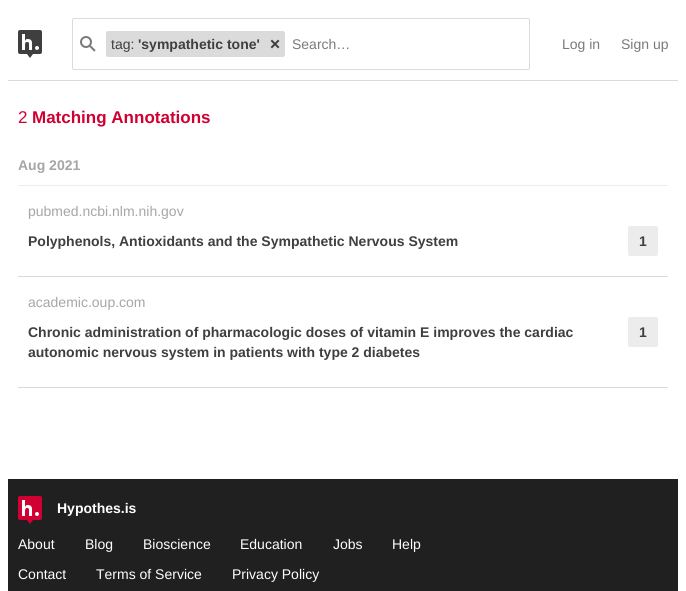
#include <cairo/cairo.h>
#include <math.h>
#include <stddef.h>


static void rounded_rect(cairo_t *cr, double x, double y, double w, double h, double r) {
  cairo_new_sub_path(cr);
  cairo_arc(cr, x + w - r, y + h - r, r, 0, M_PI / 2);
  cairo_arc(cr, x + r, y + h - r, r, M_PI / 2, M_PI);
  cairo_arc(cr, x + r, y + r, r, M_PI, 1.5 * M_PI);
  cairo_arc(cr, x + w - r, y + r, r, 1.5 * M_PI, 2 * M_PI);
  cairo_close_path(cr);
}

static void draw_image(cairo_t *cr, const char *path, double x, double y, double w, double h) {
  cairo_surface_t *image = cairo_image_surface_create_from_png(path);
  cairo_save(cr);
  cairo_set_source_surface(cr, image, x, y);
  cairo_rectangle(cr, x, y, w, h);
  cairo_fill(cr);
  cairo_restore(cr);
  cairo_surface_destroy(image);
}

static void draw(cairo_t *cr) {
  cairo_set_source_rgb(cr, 1, 1, 1);
  cairo_paint(cr);
  cairo_set_source_rgb(cr, 219 / 255.0, 219 / 255.0, 219 / 255.0);
  cairo_rectangle(cr, 8, 80, 670, 1);
  cairo_fill(cr);
  draw_image(cr, "images/1.png", 18, 30, 24, 28);
  rounded_rect(cr, 72.5, 18.5, 457, 51, 1.5);
  cairo_set_line_width(cr, 1);
  cairo_stroke(cr);
  draw_image(cr, "images/2.png", 80, 36, 16, 16);
  rounded_rect(cr, 106, 31, 179, 26, 2);
  cairo_fill(cr);
  draw_image(cr, "images/3.png", 270, 39, 10, 10);
  cairo_set_source_rgb(cr, 236 / 255.0, 236 / 255.0, 236 / 255.0);
  cairo_rectangle(cr, 18, 185, 650, 1);
  cairo_fill(cr);
  cairo_set_source_rgb(cr, 219 / 255.0, 219 / 255.0, 219 / 255.0);
  cairo_rectangle(cr, 18, 276, 650, 1);
  cairo_fill(cr);
  cairo_set_source_rgb(cr, 236 / 255.0, 236 / 255.0, 236 / 255.0);
  rounded_rect(cr, 628, 226, 30, 30, 2);
  cairo_fill(cr);
  cairo_set_source_rgb(cr, 219 / 255.0, 219 / 255.0, 219 / 255.0);
  cairo_rectangle(cr, 18, 387, 650, 1);
  cairo_fill(cr);
  cairo_set_source_rgb(cr, 236 / 255.0, 236 / 255.0, 236 / 255.0);
  rounded_rect(cr, 628, 317, 30, 30, 2);
  cairo_fill(cr);
  cairo_set_source_rgb(cr, 32 / 255.0, 32 / 255.0, 32 / 255.0);
  cairo_rectangle(cr, 8, 479, 670, 112);
  cairo_fill(cr);
  draw_image(cr, "images/4.png", 18, 496, 24, 28);
  cairo_select_font_face(cr, "Liberation Sans", CAIRO_FONT_SLANT_NORMAL, CAIRO_FONT_WEIGHT_NORMAL);
  cairo_set_font_size(cr, 14);
  cairo_set_source_rgb(cr, 63 / 255.0, 63 / 255.0, 63 / 255.0);
  cairo_move_to(cr, 111, 49);
  cairo_show_text(cr, "tag:");
  cairo_select_font_face(cr, "Liberation Sans", CAIRO_FONT_SLANT_NORMAL, CAIRO_FONT_WEIGHT_BOLD);
  cairo_move_to(cr, 138, 49);
  cairo_show_text(cr, "'sympathetic tone'");
  cairo_select_font_face(cr, "Liberation Sans", CAIRO_FONT_SLANT_NORMAL, CAIRO_FONT_WEIGHT_NORMAL);
  cairo_set_source_rgb(cr, 122 / 255.0, 122 / 255.0, 122 / 255.0);
  cairo_move_to(cr, 292, 49);
  cairo_show_text(cr, "Search…");
  cairo_move_to(cr, 562, 49);
  cairo_show_text(cr, "Log in");
  cairo_move_to(cr, 621, 49);
  cairo_show_text(cr, "Sign up");
  cairo_set_font_size(cr, 17);
  cairo_set_source_rgb(cr, 208 / 255.0, 0, 50 / 255.0);
  cairo_move_to(cr, 18, 123);
  cairo_show_text(cr, "2");
  cairo_select_font_face(cr, "Liberation Sans", CAIRO_FONT_SLANT_NORMAL, CAIRO_FONT_WEIGHT_BOLD);
  cairo_move_to(cr, 32, 123);
  cairo_show_text(cr, "Matching Annotations");
  cairo_set_font_size(cr, 14);
  cairo_set_source_rgb(cr, 166 / 255.0, 166 / 255.0, 166 / 255.0);
  cairo_move_to(cr, 18, 170);
  cairo_show_text(cr, "Aug 2021");
  cairo_select_font_face(cr, "Liberation Sans", CAIRO_FONT_SLANT_NORMAL, CAIRO_FONT_WEIGHT_NORMAL);
  cairo_move_to(cr, 28, 216);
  cairo_show_text(cr, "pubmed.ncbi.nlm.nih.gov");
  cairo_select_font_face(cr, "Liberation Sans", CAIRO_FONT_SLANT_NORMAL, CAIRO_FONT_WEIGHT_BOLD);
  cairo_set_source_rgb(cr, 63 / 255.0, 63 / 255.0, 63 / 255.0);
  cairo_move_to(cr, 28, 246);
  cairo_show_text(cr, "Polyphenols, Antioxidants and the Sympathetic Nervous System");
  cairo_move_to(cr, 639, 246);
  cairo_show_text(cr, "1");
  cairo_select_font_face(cr, "Liberation Sans", CAIRO_FONT_SLANT_NORMAL, CAIRO_FONT_WEIGHT_NORMAL);
  cairo_set_source_rgb(cr, 166 / 255.0, 166 / 255.0, 166 / 255.0);
  cairo_move_to(cr, 28, 307);
  cairo_show_text(cr, "academic.oup.com");
  cairo_select_font_face(cr, "Liberation Sans", CAIRO_FONT_SLANT_NORMAL, CAIRO_FONT_WEIGHT_BOLD);
  cairo_set_source_rgb(cr, 63 / 255.0, 63 / 255.0, 63 / 255.0);
  cairo_move_to(cr, 28, 337);
  cairo_show_text(cr, "Chronic administration of pharmacologic doses of vitamin E improves the cardiac");
  cairo_move_to(cr, 28, 357);
  cairo_show_text(cr, "autonomic nervous system in patients with type 2 diabetes");
  cairo_move_to(cr, 639, 337);
  cairo_show_text(cr, "1");
  cairo_set_source_rgb(cr, 1, 1, 1);
  cairo_move_to(cr, 57, 513);
  cairo_show_text(cr, "Hypothes.is");
  cairo_select_font_face(cr, "Liberation Sans", CAIRO_FONT_SLANT_NORMAL, CAIRO_FONT_WEIGHT_NORMAL);
  cairo_move_to(cr, 18, 549);
  cairo_show_text(cr, "About");
  cairo_move_to(cr, 85, 549);
  cairo_show_text(cr, "Blog");
  cairo_move_to(cr, 143, 549);
  cairo_show_text(cr, "Bioscience");
  cairo_move_to(cr, 240, 549);
  cairo_show_text(cr, "Education");
  cairo_move_to(cr, 333, 549);
  cairo_show_text(cr, "Jobs");
  cairo_move_to(cr, 392, 549);
  cairo_show_text(cr, "Help");
  cairo_move_to(cr, 18, 579);
  cairo_show_text(cr, "Contact");
  cairo_move_to(cr, 96, 579);
  cairo_show_text(cr, "Terms of Service");
  cairo_move_to(cr, 232, 579);
  cairo_show_text(cr, "Privacy Policy");
}

int main(void) {
  cairo_surface_t *surface = cairo_image_surface_create(CAIRO_FORMAT_RGB24, 686, 591);
  cairo_t *cr = cairo_create(surface);
  cairo_font_options_t *options = cairo_font_options_create();
  cairo_font_options_set_hint_metrics(options, CAIRO_HINT_METRICS_OFF);
  cairo_font_options_set_hint_style(options, CAIRO_HINT_STYLE_NONE);
  cairo_set_font_options(cr, options);
  cairo_set_miter_limit(cr, 4);
  draw(cr);
  cairo_surface_write_to_png(surface, "out.png");
  cairo_font_options_destroy(options);
  cairo_destroy(cr);
  cairo_surface_destroy(surface);
  return 0;
}
